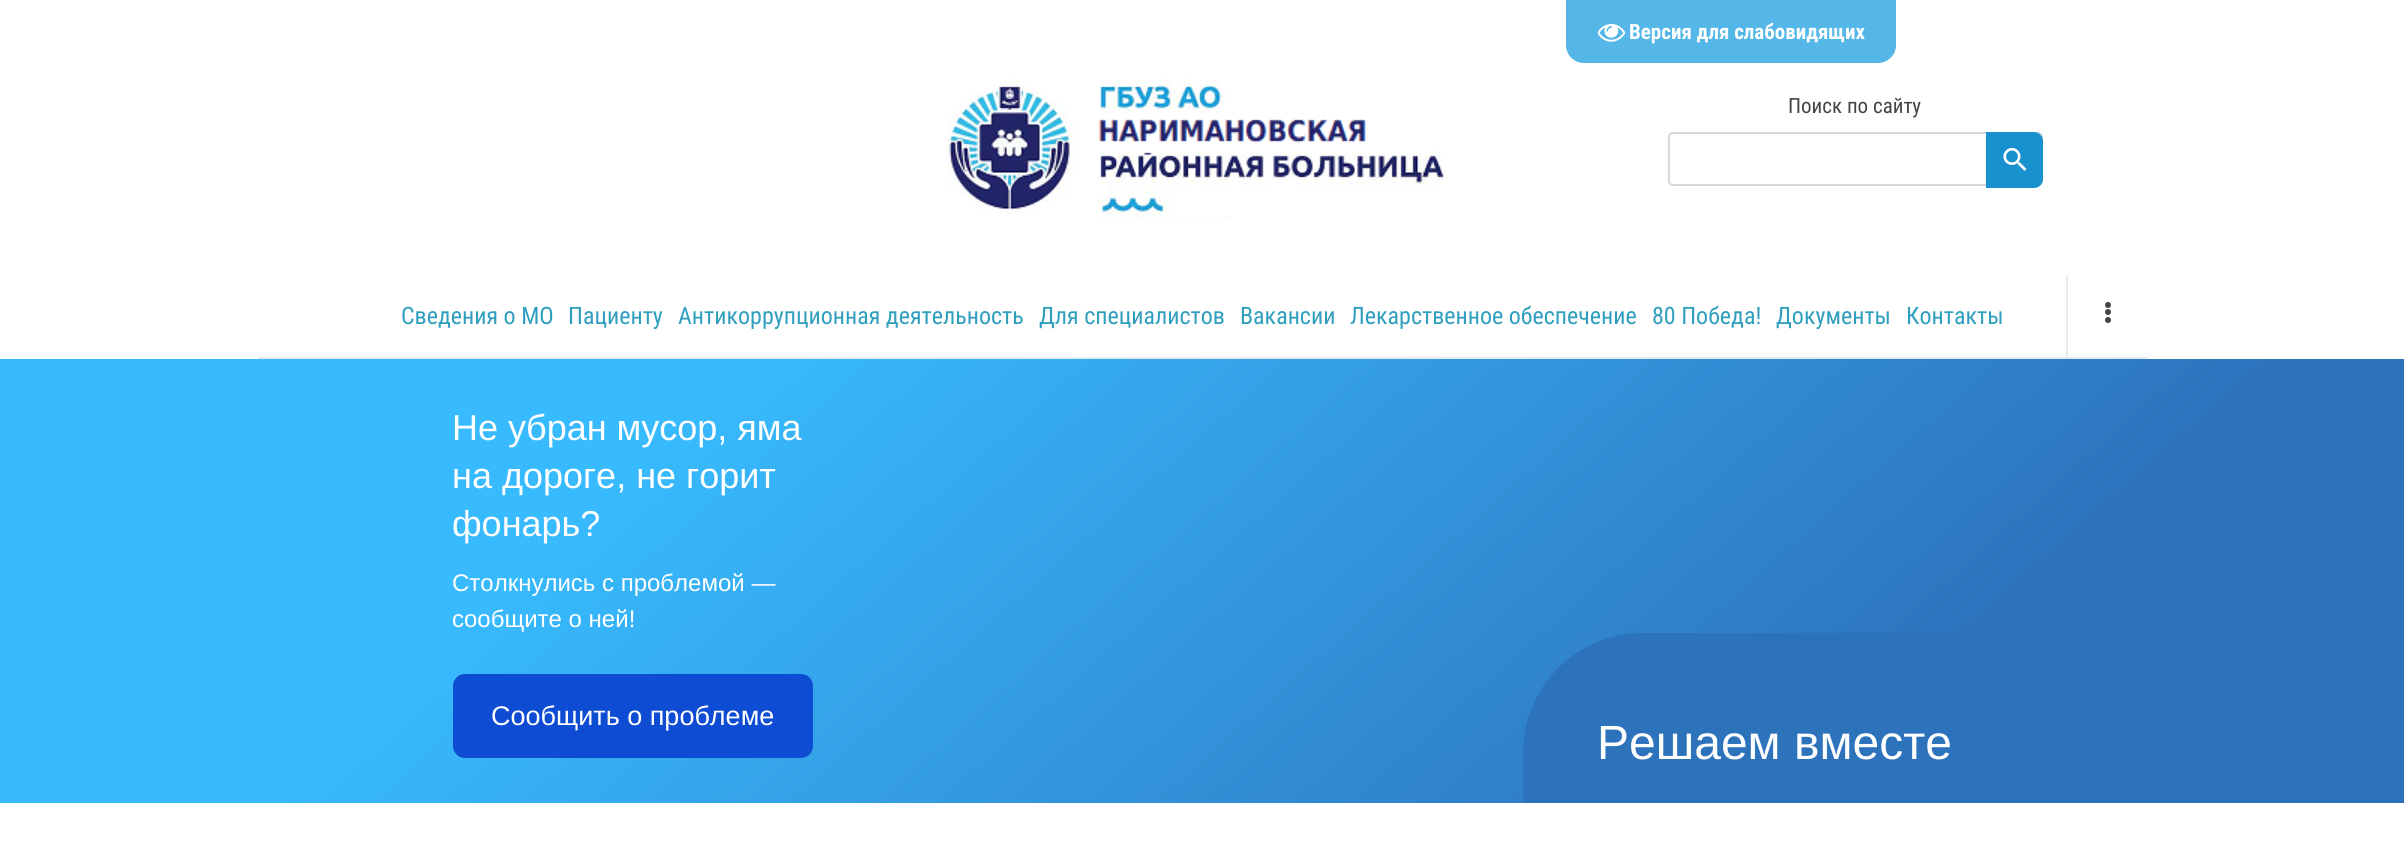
#include <cairo/cairo.h>
#include <math.h>
#include <stddef.h>


static void rounded_rect(cairo_t *cr, double x, double y, double w, double h, double r) {
  cairo_new_sub_path(cr);
  cairo_arc(cr, x + w - r, y + h - r, r, 0, M_PI / 2);
  cairo_arc(cr, x + r, y + h - r, r, M_PI / 2, M_PI);
  cairo_arc(cr, x + r, y + r, r, M_PI, 1.5 * M_PI);
  cairo_arc(cr, x + w - r, y + r, r, 1.5 * M_PI, 2 * M_PI);
  cairo_close_path(cr);
}

static void draw_image(cairo_t *cr, const char *path, double x, double y, double w, double h) {
  cairo_surface_t *image = cairo_image_surface_create_from_png(path);
  cairo_save(cr);
  cairo_set_source_surface(cr, image, x, y);
  cairo_rectangle(cr, x, y, w, h);
  cairo_fill(cr);
  cairo_restore(cr);
  cairo_surface_destroy(image);
}

static void draw(cairo_t *cr) {
  cairo_pattern_t *gradient;
  cairo_set_source_rgb(cr, 1, 1, 1);
  cairo_paint(cr);
  cairo_set_source_rgb(cr, 84 / 255.0, 183 / 255.0, 232 / 255.0);
  cairo_new_path(cr);
  cairo_move_to(cr, 1566, 0);
  cairo_line_to(cr, 1896, 0);
  cairo_line_to(cr, 1896, 45);
  cairo_curve_to(cr, 1896, 55, 1888, 63, 1878, 63);
  cairo_line_to(cr, 1584, 63);
  cairo_curve_to(cr, 1574, 63, 1566, 55, 1566, 45);
  cairo_close_path(cr);
  cairo_fill(cr);
  draw_image(cr, "images/1.png", 1598, 23, 27, 19);
  draw_image(cr, "images/2.png", 947, 79, 503, 142);
  rounded_rect(cr, 1669, 133, 373, 52, 4);
  cairo_set_source_rgb(cr, 216 / 255.0, 216 / 255.0, 216 / 255.0);
  cairo_stroke(cr);
  cairo_set_source_rgb(cr, 25 / 255.0, 145 / 255.0, 206 / 255.0);
  cairo_new_path(cr);
  cairo_move_to(cr, 1986, 132);
  cairo_line_to(cr, 2034, 132);
  cairo_curve_to(cr, 2039, 132, 2043, 136, 2043, 141);
  cairo_line_to(cr, 2043, 179);
  cairo_curve_to(cr, 2043, 184, 2039, 188, 2034, 188);
  cairo_line_to(cr, 1986, 188);
  cairo_close_path(cr);
  cairo_fill(cr);
  draw_image(cr, "images/3.png", 2003, 147, 24, 24);
  cairo_set_source_rgb(cr, 229 / 255.0, 235 / 255.0, 240 / 255.0);
  cairo_rectangle(cr, 258, 357, 1890, 2);
  cairo_fill(cr);
  cairo_rectangle(cr, 2066, 276, 2, 83);
  cairo_fill(cr);
  cairo_set_source_rgb(cr, 68 / 255.0, 68 / 255.0, 68 / 255.0);
  cairo_arc(cr, 2108, 305, 3, 0, 2 * M_PI);
  cairo_fill(cr);
  cairo_arc(cr, 2108, 312, 3, 0, 2 * M_PI);
  cairo_fill(cr);
  cairo_arc(cr, 2108, 320, 3, 0, 2 * M_PI);
  cairo_fill(cr);
  gradient = cairo_pattern_create_linear(562, -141, 1842, 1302);
  cairo_pattern_add_color_stop_rgba(gradient, 0.26, 56 / 255.0, 186 / 255.0, 254 / 255.0, 1);
  cairo_pattern_add_color_stop_rgba(gradient, 0.79, 45 / 255.0, 115 / 255.0, 188 / 255.0, 1);
  cairo_set_source(cr, gradient);
  cairo_pattern_destroy(gradient);
  cairo_rectangle(cr, 0, 359, 2404, 444);
  cairo_fill(cr);
  cairo_set_source_rgb(cr, 13 / 255.0, 76 / 255.0, 211 / 255.0);
  rounded_rect(cr, 453, 674, 360, 84, 12);
  cairo_fill(cr);
  cairo_set_source_rgb(cr, 45 / 255.0, 115 / 255.0, 188 / 255.0);
  cairo_new_path(cr);
  cairo_move_to(cr, 1643, 633);
  cairo_line_to(cr, 1998, 633);
  cairo_line_to(cr, 1998, 803);
  cairo_line_to(cr, 1523, 803);
  cairo_line_to(cr, 1523, 753);
  cairo_curve_to(cr, 1523, 686.5, 1576.5, 633, 1643, 633);
  cairo_close_path(cr);
  cairo_fill(cr);
  cairo_select_font_face(cr, "Roboto Condensed", CAIRO_FONT_SLANT_NORMAL, CAIRO_FONT_WEIGHT_BOLD);
  cairo_set_font_size(cr, 21);
  cairo_set_source_rgb(cr, 1, 1, 1);
  cairo_move_to(cr, 1629, 39);
  cairo_show_text(cr, "Версия для слабовидящих");
  cairo_select_font_face(cr, "Roboto Condensed", CAIRO_FONT_SLANT_NORMAL, CAIRO_FONT_WEIGHT_NORMAL);
  cairo_set_source_rgb(cr, 68 / 255.0, 68 / 255.0, 68 / 255.0);
  cairo_move_to(cr, 1788, 113);
  cairo_show_text(cr, "Поиск по сайту");
  cairo_set_font_size(cr, 24);
  cairo_set_source_rgb(cr, 48 / 255.0, 159 / 255.0, 190 / 255.0);
  cairo_move_to(cr, 401, 324);
  cairo_show_text(cr, "Сведения о МО");
  cairo_move_to(cr, 568, 324);
  cairo_show_text(cr, "Пациенту");
  cairo_move_to(cr, 678, 324);
  cairo_show_text(cr, "Антикоррупционная деятельность");
  cairo_move_to(cr, 1039, 324);
  cairo_show_text(cr, "Для специалистов");
  cairo_move_to(cr, 1240, 324);
  cairo_show_text(cr, "Вакансии");
  cairo_move_to(cr, 1350, 324);
  cairo_show_text(cr, "Лекарственное обеспечение");
  cairo_move_to(cr, 1652, 324);
  cairo_show_text(cr, "80 Победа!");
  cairo_move_to(cr, 1776, 324);
  cairo_show_text(cr, "Документы");
  cairo_move_to(cr, 1906, 324);
  cairo_show_text(cr, "Контакты");
  cairo_select_font_face(cr, "Liberation Sans", CAIRO_FONT_SLANT_NORMAL, CAIRO_FONT_WEIGHT_NORMAL);
  cairo_set_font_size(cr, 36);
  cairo_set_source_rgb(cr, 1, 1, 1);
  cairo_move_to(cr, 452, 440);
  cairo_show_text(cr, "Не убран мусор, яма");
  cairo_move_to(cr, 452, 488);
  cairo_show_text(cr, "на дороге, не горит");
  cairo_move_to(cr, 452, 536);
  cairo_show_text(cr, "фонарь?");
  cairo_set_font_size(cr, 24);
  cairo_move_to(cr, 452, 591);
  cairo_show_text(cr, "Столкнулись с проблемой —");
  cairo_move_to(cr, 452, 627);
  cairo_show_text(cr, "сообщите о ней!");
  cairo_set_font_size(cr, 27);
  cairo_move_to(cr, 491, 725);
  cairo_show_text(cr, "Сообщить о проблеме");
  cairo_set_font_size(cr, 48);
  cairo_move_to(cr, 1597, 759);
  cairo_show_text(cr, "Решаем вместе");
}

int main(void) {
  cairo_surface_t *surface = cairo_image_surface_create(CAIRO_FORMAT_RGB24, 2404, 848);
  cairo_t *cr = cairo_create(surface);
  cairo_font_options_t *options = cairo_font_options_create();
  cairo_font_options_set_hint_metrics(options, CAIRO_HINT_METRICS_OFF);
  cairo_font_options_set_hint_style(options, CAIRO_HINT_STYLE_NONE);
  cairo_set_font_options(cr, options);
  cairo_set_miter_limit(cr, 4);
  draw(cr);
  cairo_surface_write_to_png(surface, "out.png");
  cairo_font_options_destroy(options);
  cairo_destroy(cr);
  cairo_surface_destroy(surface);
  return 0;
}
